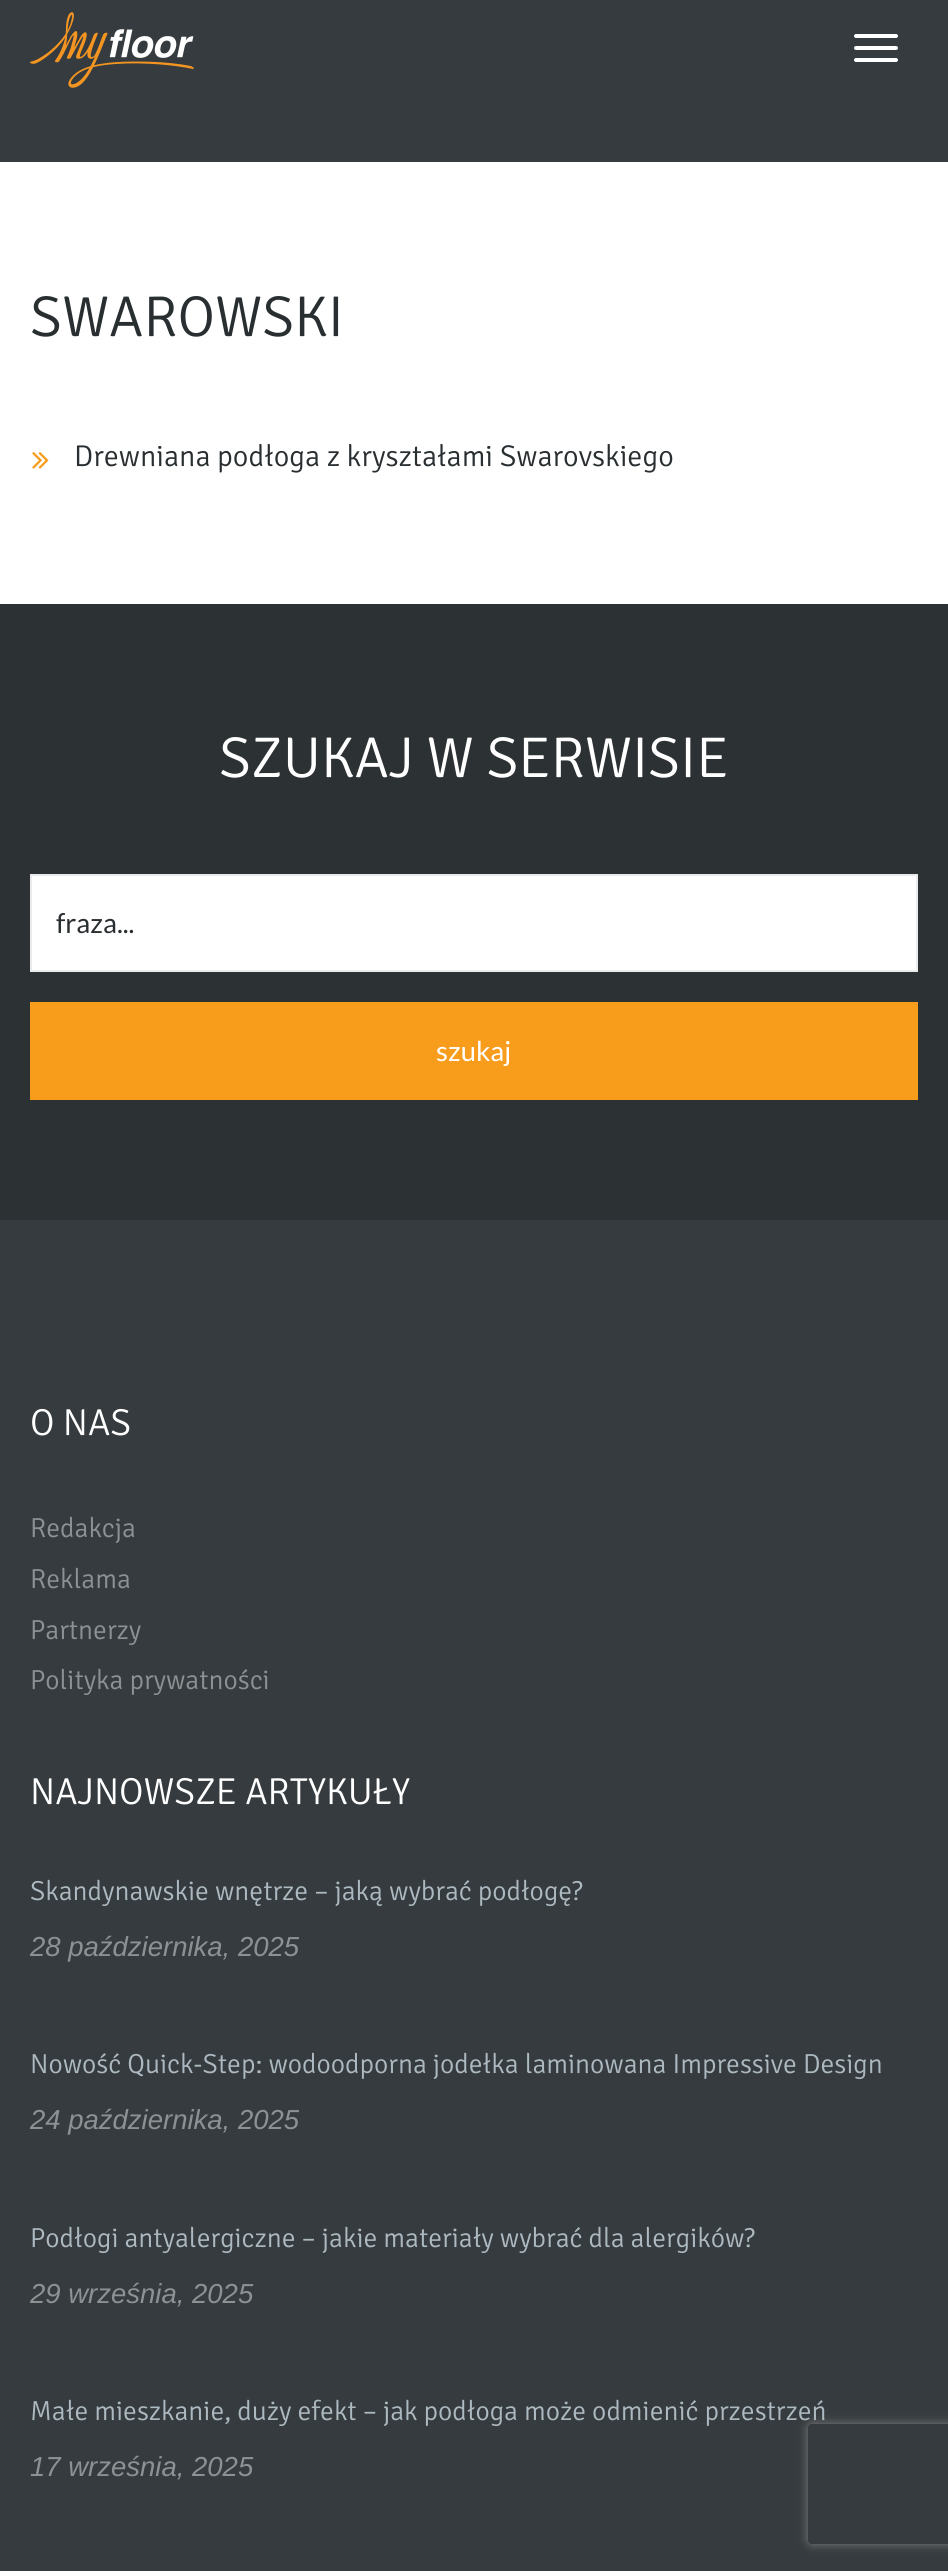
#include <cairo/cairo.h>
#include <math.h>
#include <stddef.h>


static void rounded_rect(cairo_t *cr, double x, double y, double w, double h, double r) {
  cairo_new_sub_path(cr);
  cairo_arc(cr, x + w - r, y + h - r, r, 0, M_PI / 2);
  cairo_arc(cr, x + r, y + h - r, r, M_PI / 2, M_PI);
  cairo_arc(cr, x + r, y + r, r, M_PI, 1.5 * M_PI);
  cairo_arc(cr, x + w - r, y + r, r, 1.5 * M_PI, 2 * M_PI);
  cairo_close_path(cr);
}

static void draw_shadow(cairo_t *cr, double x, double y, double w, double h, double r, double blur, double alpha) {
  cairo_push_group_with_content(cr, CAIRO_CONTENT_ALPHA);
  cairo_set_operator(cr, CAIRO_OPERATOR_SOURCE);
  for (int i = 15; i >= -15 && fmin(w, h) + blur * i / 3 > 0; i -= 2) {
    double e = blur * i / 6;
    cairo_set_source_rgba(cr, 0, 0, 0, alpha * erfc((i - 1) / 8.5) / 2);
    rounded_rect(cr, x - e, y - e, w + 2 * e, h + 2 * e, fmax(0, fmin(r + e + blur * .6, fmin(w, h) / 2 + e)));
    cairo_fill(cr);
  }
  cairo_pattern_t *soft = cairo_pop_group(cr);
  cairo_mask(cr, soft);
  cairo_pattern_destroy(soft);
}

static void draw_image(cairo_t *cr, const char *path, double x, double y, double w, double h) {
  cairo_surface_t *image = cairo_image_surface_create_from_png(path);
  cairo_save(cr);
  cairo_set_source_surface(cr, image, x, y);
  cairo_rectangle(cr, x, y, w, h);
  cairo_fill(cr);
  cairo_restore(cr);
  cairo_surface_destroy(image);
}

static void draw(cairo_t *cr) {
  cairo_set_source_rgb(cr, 53 / 255.0, 59 / 255.0, 62 / 255.0);
  cairo_paint(cr);
  draw_image(cr, "images/1.png", 30, 12, 164, 76);
  cairo_set_source_rgb(cr, 1, 1, 1);
  rounded_rect(cr, 854, 34, 44, 4, 2);
  cairo_fill(cr);
  rounded_rect(cr, 854, 46, 44, 4, 2);
  cairo_fill(cr);
  rounded_rect(cr, 854, 58, 44, 4, 2);
  cairo_fill(cr);
  cairo_rectangle(cr, 0, 162, 948, 442);
  cairo_fill(cr);
  draw_image(cr, "images/2.png", 32, 452, 17, 17);
  cairo_set_source_rgb(cr, 44 / 255.0, 49 / 255.0, 52 / 255.0);
  cairo_rectangle(cr, 0, 604, 948, 616);
  cairo_fill(cr);
  cairo_set_source_rgb(cr, 1, 1, 1);
  cairo_rectangle(cr, 31, 875, 886, 96);
  cairo_fill_preserve(cr);
  cairo_set_source_rgb(cr, 235 / 255.0, 235 / 255.0, 235 / 255.0);
  cairo_stroke(cr);
  cairo_set_source_rgb(cr, 248 / 255.0, 156 / 255.0, 28 / 255.0);
  cairo_rectangle(cr, 30, 1002, 888, 98);
  cairo_fill(cr);
  cairo_save(cr);
  cairo_set_fill_rule(cr, CAIRO_FILL_RULE_EVEN_ODD);
  cairo_new_path(cr);
  cairo_move_to(cr, 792, 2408);
  cairo_line_to(cr, 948, 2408);
  cairo_line_to(cr, 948, 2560);
  cairo_line_to(cr, 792, 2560);
  cairo_close_path(cr);
  cairo_move_to(cr, 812, 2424);
  cairo_line_to(cr, 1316, 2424);
  cairo_curve_to(cr, 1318, 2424, 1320, 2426, 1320, 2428);
  cairo_line_to(cr, 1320, 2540);
  cairo_curve_to(cr, 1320, 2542, 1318, 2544, 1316, 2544);
  cairo_line_to(cr, 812, 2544);
  cairo_curve_to(cr, 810, 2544, 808, 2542, 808, 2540);
  cairo_line_to(cr, 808, 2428);
  cairo_curve_to(cr, 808, 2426, 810, 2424, 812, 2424);
  cairo_close_path(cr);
  cairo_clip(cr);
  cairo_set_source_rgb(cr, 128 / 255.0, 128 / 255.0, 128 / 255.0);
  draw_shadow(cr, 808, 2424, 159, 120, 4, 5, 1);
  cairo_restore(cr);
  cairo_select_font_face(cr, "Signika Light", CAIRO_FONT_SLANT_NORMAL, CAIRO_FONT_WEIGHT_NORMAL);
  cairo_set_font_size(cr, 57.5);
  cairo_set_source_rgb(cr, 41 / 255.0, 46 / 255.0, 49 / 255.0);
  cairo_move_to(cr, 30, 336);
  cairo_show_text(cr, "SWAROWSKI");
  cairo_set_font_size(cr, 30);
  cairo_move_to(cr, 74, 466);
  cairo_show_text(cr, "Drewniana podłoga z kryształami Swarovskiego");
  cairo_set_font_size(cr, 57.5);
  cairo_set_source_rgb(cr, 1, 1, 1);
  cairo_move_to(cr, 219, 777);
  cairo_show_text(cr, "SZUKAJ W SERWISIE");
  cairo_select_font_face(cr, "Lato", CAIRO_FONT_SLANT_NORMAL, CAIRO_FONT_WEIGHT_NORMAL);
  cairo_set_font_size(cr, 27.5);
  cairo_set_source_rgb(cr, 41 / 255.0, 46 / 255.0, 49 / 255.0);
  cairo_move_to(cr, 56, 933);
  cairo_show_text(cr, "fraza...");
  cairo_set_source_rgb(cr, 1, 1, 1);
  cairo_move_to(cr, 436, 1061);
  cairo_show_text(cr, "szukaj");
  cairo_select_font_face(cr, "Signika Light", CAIRO_FONT_SLANT_NORMAL, CAIRO_FONT_WEIGHT_NORMAL);
  cairo_set_font_size(cr, 37.5);
  cairo_move_to(cr, 30, 1435);
  cairo_show_text(cr, "O NAS");
  cairo_set_font_size(cr, 27.5);
  cairo_set_source_rgb(cr, 140 / 255.0, 146 / 255.0, 148 / 255.0);
  cairo_move_to(cr, 30, 1537);
  cairo_show_text(cr, "Redakcja");
  cairo_move_to(cr, 30, 1588);
  cairo_show_text(cr, "Reklama");
  cairo_move_to(cr, 30, 1639);
  cairo_show_text(cr, "Partnerzy");
  cairo_move_to(cr, 30, 1689);
  cairo_show_text(cr, "Polityka prywatności");
  cairo_set_font_size(cr, 37.5);
  cairo_set_source_rgb(cr, 1, 1, 1);
  cairo_move_to(cr, 30, 1804);
  cairo_show_text(cr, "NAJNOWSZE ARTYKUŁY");
  cairo_set_font_size(cr, 27.5);
  cairo_set_source_rgb(cr, 173 / 255.0, 185 / 255.0, 193 / 255.0);
  cairo_move_to(cr, 30, 1900);
  cairo_show_text(cr, "Skandynawskie wnętrze – jaką wybrać podłogę?");
  cairo_select_font_face(cr, "Liberation Sans", CAIRO_FONT_SLANT_ITALIC, CAIRO_FONT_WEIGHT_NORMAL);
  cairo_set_source_rgb(cr, 140 / 255.0, 146 / 255.0, 148 / 255.0);
  cairo_move_to(cr, 30, 1956);
  cairo_show_text(cr, "28 października, 2025");
  cairo_select_font_face(cr, "Signika Light", CAIRO_FONT_SLANT_NORMAL, CAIRO_FONT_WEIGHT_NORMAL);
  cairo_set_source_rgb(cr, 173 / 255.0, 185 / 255.0, 193 / 255.0);
  cairo_move_to(cr, 30, 2073);
  cairo_show_text(cr, "Nowość Quick-Step: wodoodporna jodełka laminowana Impressive Design");
  cairo_select_font_face(cr, "Liberation Sans", CAIRO_FONT_SLANT_ITALIC, CAIRO_FONT_WEIGHT_NORMAL);
  cairo_set_source_rgb(cr, 140 / 255.0, 146 / 255.0, 148 / 255.0);
  cairo_move_to(cr, 30, 2129);
  cairo_show_text(cr, "24 października, 2025");
  cairo_select_font_face(cr, "Signika Light", CAIRO_FONT_SLANT_NORMAL, CAIRO_FONT_WEIGHT_NORMAL);
  cairo_set_source_rgb(cr, 173 / 255.0, 185 / 255.0, 193 / 255.0);
  cairo_move_to(cr, 30, 2247);
  cairo_show_text(cr, "Podłogi antyalergiczne – jakie materiały wybrać dla alergików?");
  cairo_select_font_face(cr, "Liberation Sans", CAIRO_FONT_SLANT_ITALIC, CAIRO_FONT_WEIGHT_NORMAL);
  cairo_set_source_rgb(cr, 140 / 255.0, 146 / 255.0, 148 / 255.0);
  cairo_move_to(cr, 30, 2303);
  cairo_show_text(cr, "29 września, 2025");
  cairo_select_font_face(cr, "Signika Light", CAIRO_FONT_SLANT_NORMAL, CAIRO_FONT_WEIGHT_NORMAL);
  cairo_set_source_rgb(cr, 173 / 255.0, 185 / 255.0, 193 / 255.0);
  cairo_move_to(cr, 30, 2420);
  cairo_show_text(cr, "Małe mieszkanie, duży efekt – jak podłoga może odmienić przestrzeń");
  cairo_select_font_face(cr, "Liberation Sans", CAIRO_FONT_SLANT_ITALIC, CAIRO_FONT_WEIGHT_NORMAL);
  cairo_set_source_rgb(cr, 140 / 255.0, 146 / 255.0, 148 / 255.0);
  cairo_move_to(cr, 30, 2476);
  cairo_show_text(cr, "17 września, 2025");
}

int main(void) {
  cairo_surface_t *surface = cairo_image_surface_create(CAIRO_FORMAT_RGB24, 948, 2571);
  cairo_t *cr = cairo_create(surface);
  cairo_font_options_t *options = cairo_font_options_create();
  cairo_font_options_set_hint_metrics(options, CAIRO_HINT_METRICS_OFF);
  cairo_font_options_set_hint_style(options, CAIRO_HINT_STYLE_NONE);
  cairo_set_font_options(cr, options);
  cairo_set_miter_limit(cr, 4);
  draw(cr);
  cairo_surface_write_to_png(surface, "out.png");
  cairo_font_options_destroy(options);
  cairo_destroy(cr);
  cairo_surface_destroy(surface);
  return 0;
}
